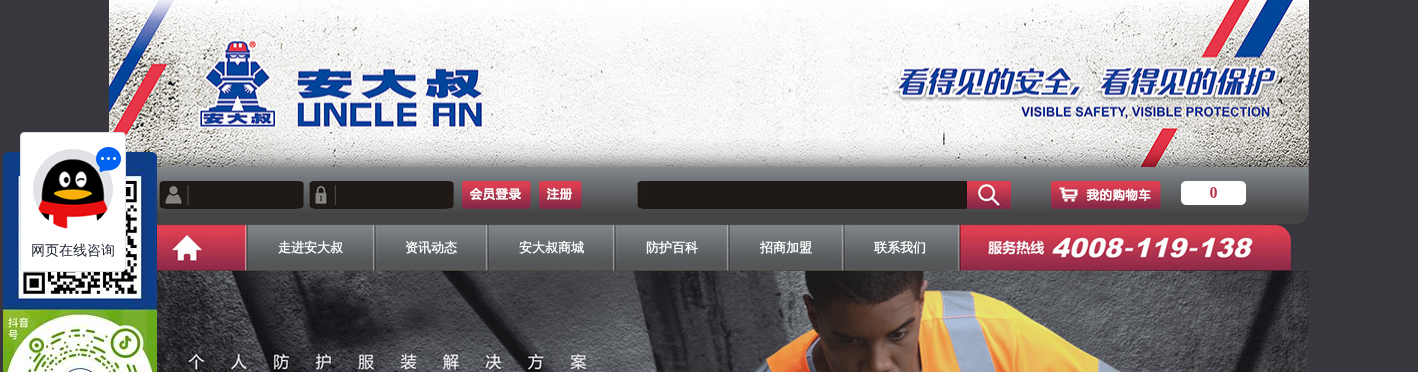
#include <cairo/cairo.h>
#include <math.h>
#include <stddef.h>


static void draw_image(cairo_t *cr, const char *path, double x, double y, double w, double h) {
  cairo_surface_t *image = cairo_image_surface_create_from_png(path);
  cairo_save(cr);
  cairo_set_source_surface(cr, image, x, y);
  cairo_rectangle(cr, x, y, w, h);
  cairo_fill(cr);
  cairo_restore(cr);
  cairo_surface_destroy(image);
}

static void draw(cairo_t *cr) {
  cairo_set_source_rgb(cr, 57 / 255.0, 54 / 255.0, 61 / 255.0);
  cairo_paint(cr);
  draw_image(cr, "images/1.png", 109, 0, 1200, 167);
  draw_image(cr, "images/3.png", 3, 152, 154, 220);
  draw_image(cr, "images/2.png", 20, 132, 106, 140);
  draw_image(cr, "images/4.png", 157, 167, 1152, 57);
  draw_image(cr, "images/5.png", 157, 224, 90, 47);
  draw_image(cr, "images/6.png", 247, 224, 713, 47);
  draw_image(cr, "images/7.png", 960, 224, 332, 47);
  draw_image(cr, "images/8.png", 157, 271, 1152, 101);
  cairo_select_font_face(cr, "WenQuanYi Zen Hei", CAIRO_FONT_SLANT_NORMAL, CAIRO_FONT_WEIGHT_BOLD);
  cairo_set_font_size(cr, 13);
  cairo_set_source_rgb(cr, 1, 1, 1);
  cairo_move_to(cr, 278, 252);
  cairo_show_text(cr, "走进安大叔");
  cairo_move_to(cr, 405, 252);
  cairo_show_text(cr, "资讯动态");
  cairo_move_to(cr, 519, 252);
  cairo_show_text(cr, "安大叔商城");
  cairo_move_to(cr, 646, 252);
  cairo_show_text(cr, "防护百科");
  cairo_move_to(cr, 760, 252);
  cairo_show_text(cr, "招商加盟");
  cairo_move_to(cr, 874, 252);
  cairo_show_text(cr, "联系我们");
}

int main(void) {
  cairo_surface_t *surface = cairo_image_surface_create(CAIRO_FORMAT_RGB24, 1418, 372);
  cairo_t *cr = cairo_create(surface);
  cairo_font_options_t *options = cairo_font_options_create();
  cairo_font_options_set_hint_metrics(options, CAIRO_HINT_METRICS_OFF);
  cairo_font_options_set_hint_style(options, CAIRO_HINT_STYLE_NONE);
  cairo_set_font_options(cr, options);
  cairo_set_miter_limit(cr, 4);
  draw(cr);
  cairo_surface_write_to_png(surface, "out.png");
  cairo_font_options_destroy(options);
  cairo_destroy(cr);
  cairo_surface_destroy(surface);
  return 0;
}
